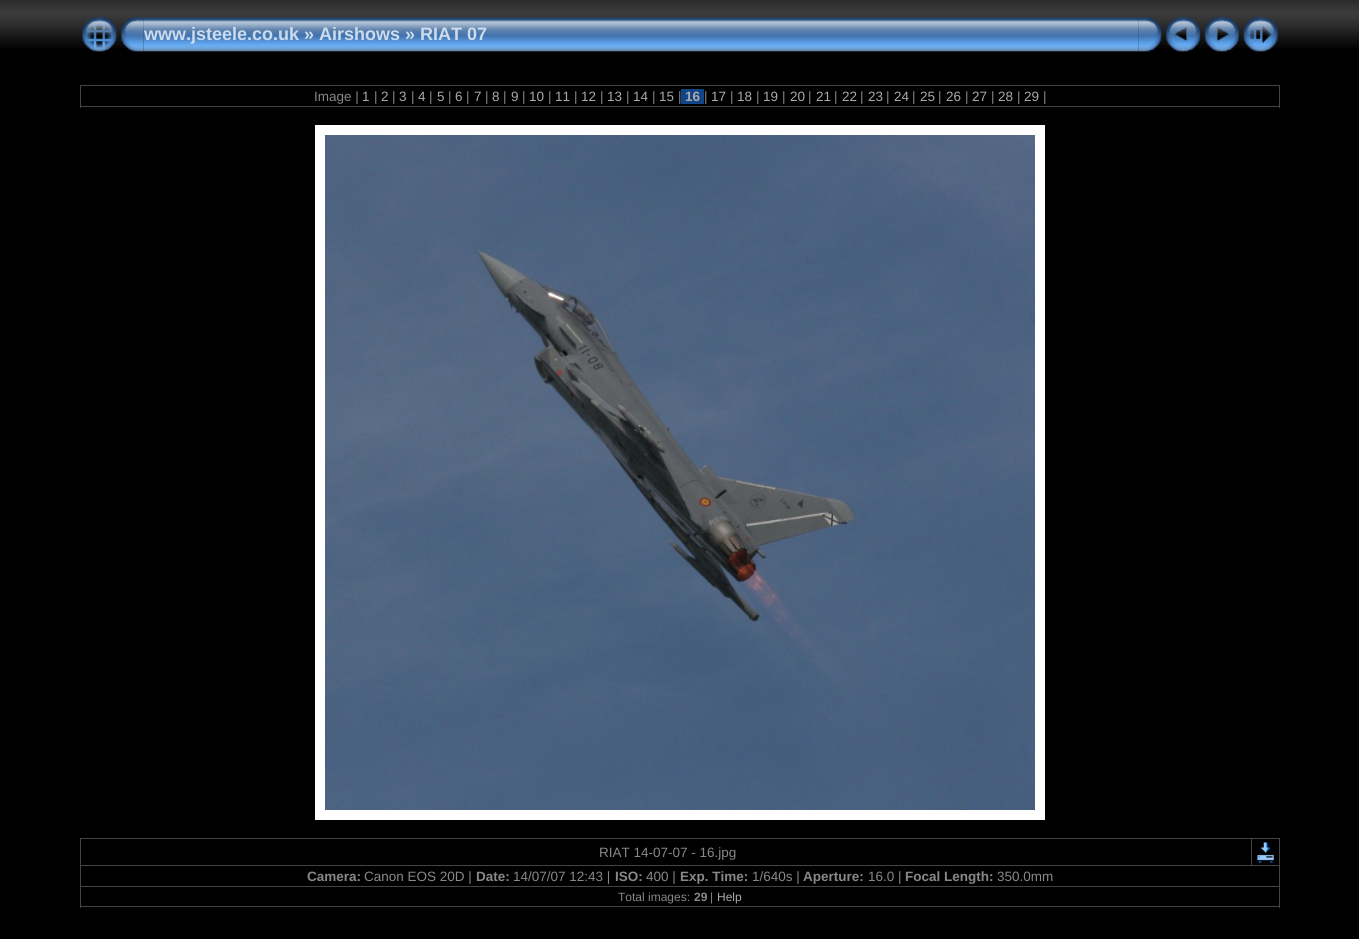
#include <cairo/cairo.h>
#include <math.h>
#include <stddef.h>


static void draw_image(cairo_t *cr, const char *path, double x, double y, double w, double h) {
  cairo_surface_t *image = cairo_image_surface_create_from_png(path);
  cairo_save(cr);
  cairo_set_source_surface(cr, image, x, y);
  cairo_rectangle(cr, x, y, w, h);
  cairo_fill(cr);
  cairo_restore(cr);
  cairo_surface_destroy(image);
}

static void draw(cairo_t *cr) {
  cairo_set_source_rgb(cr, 0, 0, 0);
  cairo_paint(cr);
  draw_image(cr, "images/1.png", 0, 0, 1359, 48);
  draw_image(cr, "images/2.png", 82, 17, 35, 35);
  draw_image(cr, "images/4.png", 143, 17, 996, 35);
  draw_image(cr, "images/3.png", 121, 17, 23, 35);
  draw_image(cr, "images/5.png", 1138, 17, 24, 35);
  draw_image(cr, "images/6.png", 1166, 17, 35, 35);
  draw_image(cr, "images/7.png", 1204, 17, 35, 35);
  draw_image(cr, "images/8.png", 1243, 17, 35, 35);
  cairo_set_source_rgb(cr, 68 / 255.0, 68 / 255.0, 68 / 255.0);
  cairo_rectangle(cr, 80, 85, 1200, 1);
  cairo_fill(cr);
  cairo_rectangle(cr, 1279, 85, 1, 23);
  cairo_fill(cr);
  cairo_rectangle(cr, 80, 106, 1200, 1);
  cairo_fill(cr);
  cairo_rectangle(cr, 80, 85, 1, 23);
  cairo_fill(cr);
  cairo_set_source_rgb(cr, 17 / 255.0, 68 / 255.0, 136 / 255.0);
  cairo_rectangle(cr, 681, 89, 23, 15);
  cairo_fill(cr);
  cairo_rectangle(cr, 320, 130, 720, 685);
  cairo_set_source_rgb(cr, 1, 1, 1);
  cairo_set_line_width(cr, 10);
  cairo_stroke(cr);
  draw_image(cr, "images/9.png", 325, 135, 710, 675);
  cairo_set_source_rgb(cr, 68 / 255.0, 68 / 255.0, 68 / 255.0);
  cairo_rectangle(cr, 80, 838, 1200, 1);
  cairo_fill(cr);
  cairo_rectangle(cr, 1279, 838, 1, 70);
  cairo_fill(cr);
  cairo_rectangle(cr, 80, 906, 1200, 1);
  cairo_fill(cr);
  cairo_rectangle(cr, 80, 838, 1, 70);
  cairo_fill(cr);
  cairo_rectangle(cr, 80, 865, 1200, 1);
  cairo_fill(cr);
  cairo_rectangle(cr, 1251, 838, 1, 28);
  cairo_fill(cr);
  draw_image(cr, "images/10.png", 1257, 842, 17, 21);
  cairo_rectangle(cr, 80, 886, 1200, 1);
  cairo_fill(cr);
  cairo_select_font_face(cr, "Liberation Sans", CAIRO_FONT_SLANT_NORMAL, CAIRO_FONT_WEIGHT_BOLD);
  cairo_set_font_size(cr, 18);
  cairo_set_source_rgb(cr, 204 / 255.0, 220 / 255.0, 238 / 255.0);
  cairo_move_to(cr, 144, 40);
  cairo_show_text(cr, "www.jsteele.co.uk » Airshows » RIAT 07");
  cairo_select_font_face(cr, "Liberation Sans", CAIRO_FONT_SLANT_NORMAL, CAIRO_FONT_WEIGHT_NORMAL);
  cairo_set_font_size(cr, 13.5);
  cairo_set_source_rgb(cr, 136 / 255.0, 136 / 255.0, 136 / 255.0);
  cairo_move_to(cr, 314, 101);
  cairo_show_text(cr, "Image |");
  cairo_set_source_rgb(cr, 170 / 255.0, 170 / 255.0, 170 / 255.0);
  cairo_move_to(cr, 362, 101);
  cairo_show_text(cr, "1");
  cairo_set_source_rgb(cr, 136 / 255.0, 136 / 255.0, 136 / 255.0);
  cairo_move_to(cr, 374, 101);
  cairo_show_text(cr, "|");
  cairo_set_source_rgb(cr, 170 / 255.0, 170 / 255.0, 170 / 255.0);
  cairo_move_to(cr, 381, 101);
  cairo_show_text(cr, "2");
  cairo_set_source_rgb(cr, 136 / 255.0, 136 / 255.0, 136 / 255.0);
  cairo_move_to(cr, 392, 101);
  cairo_show_text(cr, "|");
  cairo_set_source_rgb(cr, 170 / 255.0, 170 / 255.0, 170 / 255.0);
  cairo_move_to(cr, 399, 101);
  cairo_show_text(cr, "3");
  cairo_set_source_rgb(cr, 136 / 255.0, 136 / 255.0, 136 / 255.0);
  cairo_move_to(cr, 411, 101);
  cairo_show_text(cr, "|");
  cairo_set_source_rgb(cr, 170 / 255.0, 170 / 255.0, 170 / 255.0);
  cairo_move_to(cr, 418, 101);
  cairo_show_text(cr, "4");
  cairo_set_source_rgb(cr, 136 / 255.0, 136 / 255.0, 136 / 255.0);
  cairo_move_to(cr, 429, 101);
  cairo_show_text(cr, "|");
  cairo_set_source_rgb(cr, 170 / 255.0, 170 / 255.0, 170 / 255.0);
  cairo_move_to(cr, 437, 101);
  cairo_show_text(cr, "5");
  cairo_set_source_rgb(cr, 136 / 255.0, 136 / 255.0, 136 / 255.0);
  cairo_move_to(cr, 448, 101);
  cairo_show_text(cr, "|");
  cairo_set_source_rgb(cr, 170 / 255.0, 170 / 255.0, 170 / 255.0);
  cairo_move_to(cr, 455, 101);
  cairo_show_text(cr, "6");
  cairo_set_source_rgb(cr, 136 / 255.0, 136 / 255.0, 136 / 255.0);
  cairo_move_to(cr, 466, 101);
  cairo_show_text(cr, "|");
  cairo_set_source_rgb(cr, 170 / 255.0, 170 / 255.0, 170 / 255.0);
  cairo_move_to(cr, 474, 101);
  cairo_show_text(cr, "7");
  cairo_set_source_rgb(cr, 136 / 255.0, 136 / 255.0, 136 / 255.0);
  cairo_move_to(cr, 485, 101);
  cairo_show_text(cr, "|");
  cairo_set_source_rgb(cr, 170 / 255.0, 170 / 255.0, 170 / 255.0);
  cairo_move_to(cr, 492, 101);
  cairo_show_text(cr, "8");
  cairo_set_source_rgb(cr, 136 / 255.0, 136 / 255.0, 136 / 255.0);
  cairo_move_to(cr, 503, 101);
  cairo_show_text(cr, "|");
  cairo_set_source_rgb(cr, 170 / 255.0, 170 / 255.0, 170 / 255.0);
  cairo_move_to(cr, 511, 101);
  cairo_show_text(cr, "9");
  cairo_set_source_rgb(cr, 136 / 255.0, 136 / 255.0, 136 / 255.0);
  cairo_move_to(cr, 522, 101);
  cairo_show_text(cr, "|");
  cairo_set_source_rgb(cr, 170 / 255.0, 170 / 255.0, 170 / 255.0);
  cairo_move_to(cr, 529, 101);
  cairo_show_text(cr, "10");
  cairo_set_source_rgb(cr, 136 / 255.0, 136 / 255.0, 136 / 255.0);
  cairo_move_to(cr, 548, 101);
  cairo_show_text(cr, "|");
  cairo_set_source_rgb(cr, 170 / 255.0, 170 / 255.0, 170 / 255.0);
  cairo_move_to(cr, 555, 101);
  cairo_show_text(cr, "11");
  cairo_set_source_rgb(cr, 136 / 255.0, 136 / 255.0, 136 / 255.0);
  cairo_move_to(cr, 574, 101);
  cairo_show_text(cr, "|");
  cairo_set_source_rgb(cr, 170 / 255.0, 170 / 255.0, 170 / 255.0);
  cairo_move_to(cr, 581, 101);
  cairo_show_text(cr, "12");
  cairo_set_source_rgb(cr, 136 / 255.0, 136 / 255.0, 136 / 255.0);
  cairo_move_to(cr, 600, 101);
  cairo_show_text(cr, "|");
  cairo_set_source_rgb(cr, 170 / 255.0, 170 / 255.0, 170 / 255.0);
  cairo_move_to(cr, 607, 101);
  cairo_show_text(cr, "13");
  cairo_set_source_rgb(cr, 136 / 255.0, 136 / 255.0, 136 / 255.0);
  cairo_move_to(cr, 626, 101);
  cairo_show_text(cr, "|");
  cairo_set_source_rgb(cr, 170 / 255.0, 170 / 255.0, 170 / 255.0);
  cairo_move_to(cr, 633, 101);
  cairo_show_text(cr, "14");
  cairo_set_source_rgb(cr, 136 / 255.0, 136 / 255.0, 136 / 255.0);
  cairo_move_to(cr, 652, 101);
  cairo_show_text(cr, "|");
  cairo_set_source_rgb(cr, 170 / 255.0, 170 / 255.0, 170 / 255.0);
  cairo_move_to(cr, 659, 101);
  cairo_show_text(cr, "15");
  cairo_set_source_rgb(cr, 136 / 255.0, 136 / 255.0, 136 / 255.0);
  cairo_move_to(cr, 678, 101);
  cairo_show_text(cr, "|");
  cairo_select_font_face(cr, "Liberation Sans", CAIRO_FONT_SLANT_NORMAL, CAIRO_FONT_WEIGHT_BOLD);
  cairo_set_source_rgb(cr, 170 / 255.0, 170 / 255.0, 170 / 255.0);
  cairo_move_to(cr, 685, 101);
  cairo_show_text(cr, "16");
  cairo_select_font_face(cr, "Liberation Sans", CAIRO_FONT_SLANT_NORMAL, CAIRO_FONT_WEIGHT_NORMAL);
  cairo_set_source_rgb(cr, 136 / 255.0, 136 / 255.0, 136 / 255.0);
  cairo_move_to(cr, 704, 101);
  cairo_show_text(cr, "|");
  cairo_set_source_rgb(cr, 170 / 255.0, 170 / 255.0, 170 / 255.0);
  cairo_move_to(cr, 711, 101);
  cairo_show_text(cr, "17");
  cairo_set_source_rgb(cr, 136 / 255.0, 136 / 255.0, 136 / 255.0);
  cairo_move_to(cr, 730, 101);
  cairo_show_text(cr, "|");
  cairo_set_source_rgb(cr, 170 / 255.0, 170 / 255.0, 170 / 255.0);
  cairo_move_to(cr, 737, 101);
  cairo_show_text(cr, "18");
  cairo_set_source_rgb(cr, 136 / 255.0, 136 / 255.0, 136 / 255.0);
  cairo_move_to(cr, 756, 101);
  cairo_show_text(cr, "|");
  cairo_set_source_rgb(cr, 170 / 255.0, 170 / 255.0, 170 / 255.0);
  cairo_move_to(cr, 763, 101);
  cairo_show_text(cr, "19");
  cairo_set_source_rgb(cr, 136 / 255.0, 136 / 255.0, 136 / 255.0);
  cairo_move_to(cr, 782, 101);
  cairo_show_text(cr, "|");
  cairo_set_source_rgb(cr, 170 / 255.0, 170 / 255.0, 170 / 255.0);
  cairo_move_to(cr, 790, 101);
  cairo_show_text(cr, "20");
  cairo_set_source_rgb(cr, 136 / 255.0, 136 / 255.0, 136 / 255.0);
  cairo_move_to(cr, 808, 101);
  cairo_show_text(cr, "|");
  cairo_set_source_rgb(cr, 170 / 255.0, 170 / 255.0, 170 / 255.0);
  cairo_move_to(cr, 816, 101);
  cairo_show_text(cr, "21");
  cairo_set_source_rgb(cr, 136 / 255.0, 136 / 255.0, 136 / 255.0);
  cairo_move_to(cr, 834, 101);
  cairo_show_text(cr, "|");
  cairo_set_source_rgb(cr, 170 / 255.0, 170 / 255.0, 170 / 255.0);
  cairo_move_to(cr, 842, 101);
  cairo_show_text(cr, "22");
  cairo_set_source_rgb(cr, 136 / 255.0, 136 / 255.0, 136 / 255.0);
  cairo_move_to(cr, 860, 101);
  cairo_show_text(cr, "|");
  cairo_set_source_rgb(cr, 170 / 255.0, 170 / 255.0, 170 / 255.0);
  cairo_move_to(cr, 868, 101);
  cairo_show_text(cr, "23");
  cairo_set_source_rgb(cr, 136 / 255.0, 136 / 255.0, 136 / 255.0);
  cairo_move_to(cr, 886, 101);
  cairo_show_text(cr, "|");
  cairo_set_source_rgb(cr, 170 / 255.0, 170 / 255.0, 170 / 255.0);
  cairo_move_to(cr, 894, 101);
  cairo_show_text(cr, "24");
  cairo_set_source_rgb(cr, 136 / 255.0, 136 / 255.0, 136 / 255.0);
  cairo_move_to(cr, 912, 101);
  cairo_show_text(cr, "|");
  cairo_set_source_rgb(cr, 170 / 255.0, 170 / 255.0, 170 / 255.0);
  cairo_move_to(cr, 920, 101);
  cairo_show_text(cr, "25");
  cairo_set_source_rgb(cr, 136 / 255.0, 136 / 255.0, 136 / 255.0);
  cairo_move_to(cr, 938, 101);
  cairo_show_text(cr, "|");
  cairo_set_source_rgb(cr, 170 / 255.0, 170 / 255.0, 170 / 255.0);
  cairo_move_to(cr, 946, 101);
  cairo_show_text(cr, "26");
  cairo_set_source_rgb(cr, 136 / 255.0, 136 / 255.0, 136 / 255.0);
  cairo_move_to(cr, 965, 101);
  cairo_show_text(cr, "|");
  cairo_set_source_rgb(cr, 170 / 255.0, 170 / 255.0, 170 / 255.0);
  cairo_move_to(cr, 972, 101);
  cairo_show_text(cr, "27");
  cairo_set_source_rgb(cr, 136 / 255.0, 136 / 255.0, 136 / 255.0);
  cairo_move_to(cr, 991, 101);
  cairo_show_text(cr, "|");
  cairo_set_source_rgb(cr, 170 / 255.0, 170 / 255.0, 170 / 255.0);
  cairo_move_to(cr, 998, 101);
  cairo_show_text(cr, "28");
  cairo_set_source_rgb(cr, 136 / 255.0, 136 / 255.0, 136 / 255.0);
  cairo_move_to(cr, 1017, 101);
  cairo_show_text(cr, "|");
  cairo_set_source_rgb(cr, 170 / 255.0, 170 / 255.0, 170 / 255.0);
  cairo_move_to(cr, 1024, 101);
  cairo_show_text(cr, "29");
  cairo_set_source_rgb(cr, 136 / 255.0, 136 / 255.0, 136 / 255.0);
  cairo_move_to(cr, 1043, 101);
  cairo_show_text(cr, "|");
  cairo_move_to(cr, 599, 857);
  cairo_show_text(cr, "RIAT 14-07-07 - 16.jpg");
  cairo_select_font_face(cr, "Liberation Sans", CAIRO_FONT_SLANT_NORMAL, CAIRO_FONT_WEIGHT_BOLD);
  cairo_move_to(cr, 307, 881);
  cairo_show_text(cr, "Camera:");
  cairo_select_font_face(cr, "Liberation Sans", CAIRO_FONT_SLANT_NORMAL, CAIRO_FONT_WEIGHT_NORMAL);
  cairo_move_to(cr, 364, 881);
  cairo_show_text(cr, "Canon EOS 20D |");
  cairo_select_font_face(cr, "Liberation Sans", CAIRO_FONT_SLANT_NORMAL, CAIRO_FONT_WEIGHT_BOLD);
  cairo_move_to(cr, 476, 881);
  cairo_show_text(cr, "Date:");
  cairo_select_font_face(cr, "Liberation Sans", CAIRO_FONT_SLANT_NORMAL, CAIRO_FONT_WEIGHT_NORMAL);
  cairo_move_to(cr, 513, 881);
  cairo_show_text(cr, "14/07/07 12:43 |");
  cairo_select_font_face(cr, "Liberation Sans", CAIRO_FONT_SLANT_NORMAL, CAIRO_FONT_WEIGHT_BOLD);
  cairo_move_to(cr, 615, 881);
  cairo_show_text(cr, "ISO:");
  cairo_select_font_face(cr, "Liberation Sans", CAIRO_FONT_SLANT_NORMAL, CAIRO_FONT_WEIGHT_NORMAL);
  cairo_move_to(cr, 646, 881);
  cairo_show_text(cr, "400 |");
  cairo_select_font_face(cr, "Liberation Sans", CAIRO_FONT_SLANT_NORMAL, CAIRO_FONT_WEIGHT_BOLD);
  cairo_move_to(cr, 680, 881);
  cairo_show_text(cr, "Exp. Time:");
  cairo_select_font_face(cr, "Liberation Sans", CAIRO_FONT_SLANT_NORMAL, CAIRO_FONT_WEIGHT_NORMAL);
  cairo_move_to(cr, 752, 881);
  cairo_show_text(cr, "1/640s |");
  cairo_select_font_face(cr, "Liberation Sans", CAIRO_FONT_SLANT_NORMAL, CAIRO_FONT_WEIGHT_BOLD);
  cairo_move_to(cr, 803, 881);
  cairo_show_text(cr, "Aperture:");
  cairo_select_font_face(cr, "Liberation Sans", CAIRO_FONT_SLANT_NORMAL, CAIRO_FONT_WEIGHT_NORMAL);
  cairo_move_to(cr, 868, 881);
  cairo_show_text(cr, "16.0 |");
  cairo_select_font_face(cr, "Liberation Sans", CAIRO_FONT_SLANT_NORMAL, CAIRO_FONT_WEIGHT_BOLD);
  cairo_move_to(cr, 905, 881);
  cairo_show_text(cr, "Focal Length:");
  cairo_select_font_face(cr, "Liberation Sans", CAIRO_FONT_SLANT_NORMAL, CAIRO_FONT_WEIGHT_NORMAL);
  cairo_move_to(cr, 997, 881);
  cairo_show_text(cr, "350.0mm");
  cairo_set_font_size(cr, 12);
  cairo_move_to(cr, 618, 901);
  cairo_show_text(cr, "Total images:");
  cairo_select_font_face(cr, "Liberation Sans", CAIRO_FONT_SLANT_NORMAL, CAIRO_FONT_WEIGHT_BOLD);
  cairo_move_to(cr, 694, 901);
  cairo_show_text(cr, "29");
  cairo_select_font_face(cr, "Liberation Sans", CAIRO_FONT_SLANT_NORMAL, CAIRO_FONT_WEIGHT_NORMAL);
  cairo_move_to(cr, 710, 901);
  cairo_show_text(cr, "|");
  cairo_set_source_rgb(cr, 170 / 255.0, 170 / 255.0, 170 / 255.0);
  cairo_move_to(cr, 717, 901);
  cairo_show_text(cr, "Help");
}

int main(void) {
  cairo_surface_t *surface = cairo_image_surface_create(CAIRO_FORMAT_RGB24, 1359, 939);
  cairo_t *cr = cairo_create(surface);
  cairo_font_options_t *options = cairo_font_options_create();
  cairo_font_options_set_hint_metrics(options, CAIRO_HINT_METRICS_OFF);
  cairo_font_options_set_hint_style(options, CAIRO_HINT_STYLE_NONE);
  cairo_set_font_options(cr, options);
  cairo_set_miter_limit(cr, 4);
  draw(cr);
  cairo_surface_write_to_png(surface, "out.png");
  cairo_font_options_destroy(options);
  cairo_destroy(cr);
  cairo_surface_destroy(surface);
  return 0;
}
